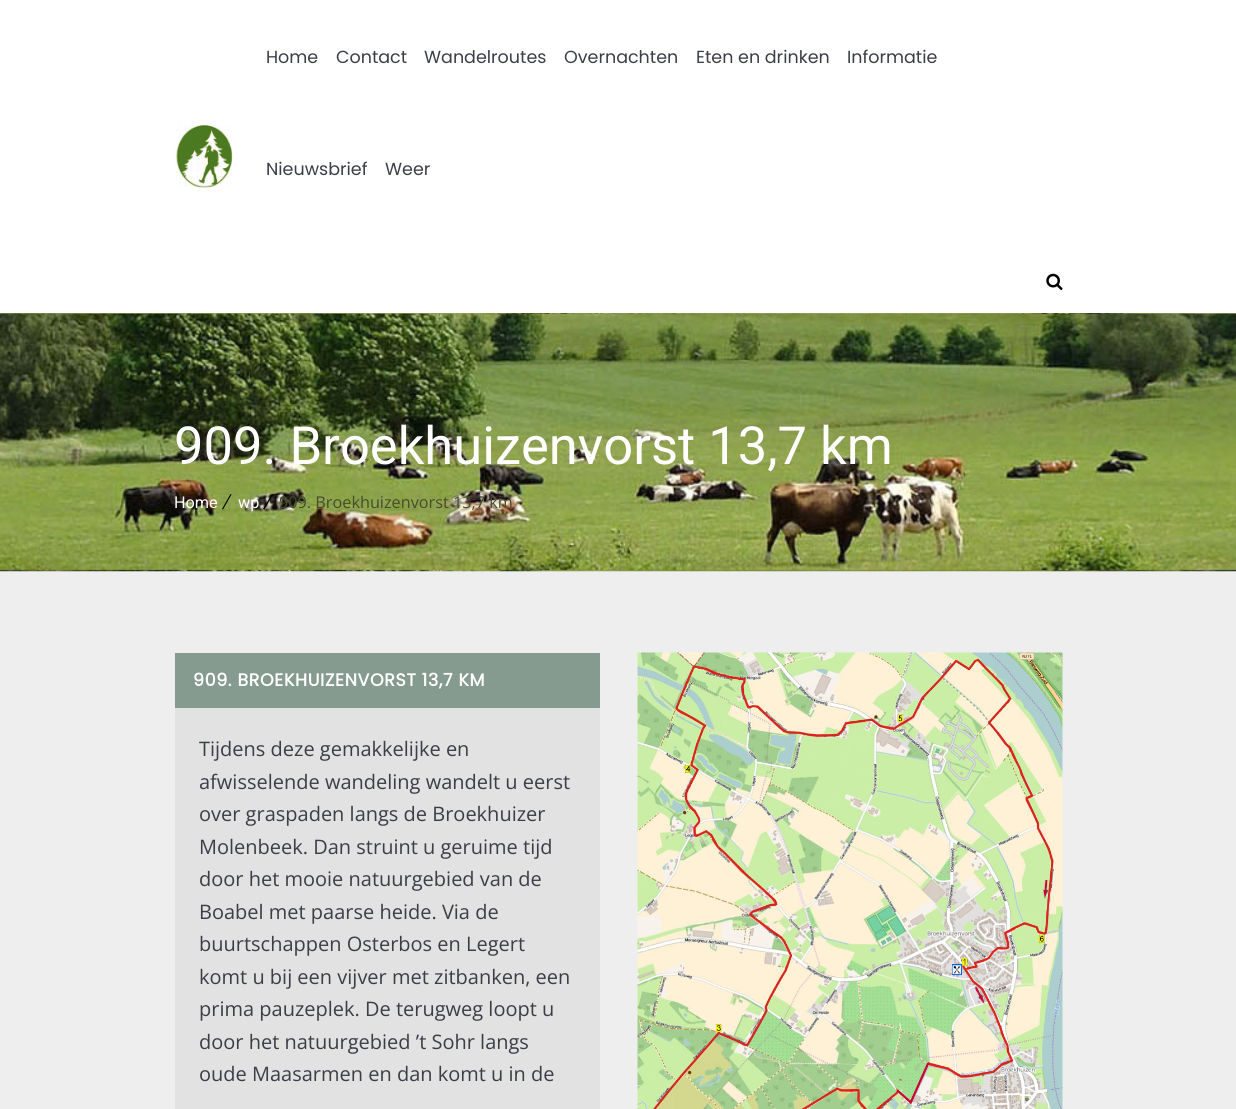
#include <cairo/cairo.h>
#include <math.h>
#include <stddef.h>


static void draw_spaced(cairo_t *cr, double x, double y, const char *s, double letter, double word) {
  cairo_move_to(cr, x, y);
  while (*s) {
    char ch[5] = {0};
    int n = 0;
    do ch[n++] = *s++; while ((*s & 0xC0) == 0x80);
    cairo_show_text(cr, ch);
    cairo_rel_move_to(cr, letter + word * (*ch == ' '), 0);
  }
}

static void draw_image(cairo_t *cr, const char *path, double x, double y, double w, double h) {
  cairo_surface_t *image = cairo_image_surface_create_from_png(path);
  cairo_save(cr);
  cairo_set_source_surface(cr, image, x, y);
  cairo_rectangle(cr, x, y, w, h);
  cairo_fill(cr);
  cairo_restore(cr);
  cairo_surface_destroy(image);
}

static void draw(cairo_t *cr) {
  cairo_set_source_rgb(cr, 238 / 255.0, 238 / 255.0, 238 / 255.0);
  cairo_paint(cr);
  cairo_set_source_rgb(cr, 1, 1, 1);
  cairo_rectangle(cr, 0, 0, 1236, 313);
  cairo_fill(cr);
  draw_image(cr, "images/1.png", 175, 125, 58, 63);
  draw_image(cr, "images/2.png", 1046, 273, 17, 17);
  draw_image(cr, "images/3.png", 0, 313, 1236, 259);
  cairo_set_source_rgb(cr, 133 / 255.0, 155 / 255.0, 143 / 255.0);
  cairo_rectangle(cr, 175, 653, 425, 55);
  cairo_fill(cr);
  cairo_set_source_rgb(cr, 226 / 255.0, 226 / 255.0, 226 / 255.0);
  cairo_rectangle(cr, 175, 708, 425, 401);
  cairo_fill(cr);
  draw_image(cr, "images/4.png", 637, 652, 426, 457);
  cairo_select_font_face(cr, "Poppins", CAIRO_FONT_SLANT_NORMAL, CAIRO_FONT_WEIGHT_NORMAL);
  cairo_set_font_size(cr, 17.5);
  cairo_set_source_rgb(cr, 59 / 255.0, 62 / 255.0, 71 / 255.0);
  cairo_move_to(cr, 266, 63);
  cairo_show_text(cr, "Home");
  cairo_move_to(cr, 336, 63);
  cairo_show_text(cr, "Contact");
  cairo_move_to(cr, 424, 63);
  cairo_show_text(cr, "Wandelroutes");
  cairo_move_to(cr, 564, 63);
  cairo_show_text(cr, "Overnachten");
  cairo_move_to(cr, 696, 63);
  cairo_show_text(cr, "Eten en drinken");
  cairo_move_to(cr, 847, 63);
  cairo_show_text(cr, "Informatie");
  cairo_move_to(cr, 266, 175);
  cairo_show_text(cr, "Nieuwsbrief");
  cairo_move_to(cr, 385, 175);
  cairo_show_text(cr, "Weer");
  cairo_select_font_face(cr, "Roboto", CAIRO_FONT_SLANT_NORMAL, CAIRO_FONT_WEIGHT_NORMAL);
  cairo_set_font_size(cr, 52.5);
  cairo_set_source_rgb(cr, 1, 1, 1);
  cairo_move_to(cr, 174, 464);
  cairo_show_text(cr, "909. Broekhuizenvorst 13,7 km");
  cairo_set_font_size(cr, 16.25);
  cairo_move_to(cr, 174, 508);
  cairo_show_text(cr, "Home");
  cairo_select_font_face(cr, "Open Sans", CAIRO_FONT_SLANT_NORMAL, CAIRO_FONT_WEIGHT_NORMAL);
  cairo_set_source_rgb(cr, 69 / 255.0, 75 / 255.0, 43 / 255.0);
  cairo_move_to(cr, 279, 508);
  cairo_show_text(cr, "909. Broekhuizenvorst 13,7 km");
  cairo_select_font_face(cr, "Roboto", CAIRO_FONT_SLANT_NORMAL, CAIRO_FONT_WEIGHT_NORMAL);
  cairo_set_source_rgb(cr, 1, 1, 1);
  cairo_move_to(cr, 238, 508);
  cairo_show_text(cr, "wp");
  cairo_set_source_rgb(cr, 0, 0, 0);
  cairo_new_path(cr);
  cairo_move_to(cr, 230.5, 494);
  cairo_line_to(cr, 231.5, 494.5);
  cairo_line_to(cr, 223, 509.5);
  cairo_line_to(cr, 222, 509);
  cairo_close_path(cr);
  cairo_move_to(cr, 272, 494);
  cairo_line_to(cr, 273, 494.5);
  cairo_line_to(cr, 264.5, 509.5);
  cairo_line_to(cr, 263, 509);
  cairo_close_path(cr);
  cairo_fill(cr);
  cairo_select_font_face(cr, "Poppins", CAIRO_FONT_SLANT_NORMAL, CAIRO_FONT_WEIGHT_BOLD);
  cairo_set_font_size(cr, 17.5);
  cairo_set_source_rgb(cr, 1, 1, 1);
  draw_spaced(cr, 193, 686, "909. BROEKHUIZENVORST 13,7 KM", 0.6, 0);
  cairo_select_font_face(cr, "Open Sans", CAIRO_FONT_SLANT_NORMAL, CAIRO_FONT_WEIGHT_NORMAL);
  cairo_set_font_size(cr, 20);
  cairo_set_source_rgb(cr, 59 / 255.0, 62 / 255.0, 71 / 255.0);
  cairo_move_to(cr, 199, 756);
  cairo_show_text(cr, "Tijdens deze gemakkelijke en");
  cairo_move_to(cr, 199, 789);
  cairo_show_text(cr, "afwisselende wandeling wandelt u eerst");
  cairo_move_to(cr, 199, 821);
  cairo_show_text(cr, "over graspaden langs de Broekhuizer");
  cairo_move_to(cr, 199, 854);
  cairo_show_text(cr, "Molenbeek. Dan struint u geruime tijd");
  cairo_move_to(cr, 199, 886);
  cairo_show_text(cr, "door het mooie natuurgebied van de");
  cairo_move_to(cr, 199, 919);
  cairo_show_text(cr, "Boabel met paarse heide. Via de");
  cairo_move_to(cr, 199, 951);
  cairo_show_text(cr, "buurtschappen Osterbos en Legert");
  cairo_move_to(cr, 199, 984);
  cairo_show_text(cr, "komt u bij een vijver met zitbanken, een");
  cairo_move_to(cr, 199, 1016);
  cairo_show_text(cr, "prima pauzeplek. De terugweg loopt u");
  cairo_move_to(cr, 199, 1049);
  cairo_show_text(cr, "door het natuurgebied ’t Sohr langs");
  cairo_move_to(cr, 199, 1081);
  cairo_show_text(cr, "oude Maasarmen en dan komt u in de");
}

int main(void) {
  cairo_surface_t *surface = cairo_image_surface_create(CAIRO_FORMAT_RGB24, 1236, 1109);
  cairo_t *cr = cairo_create(surface);
  cairo_font_options_t *options = cairo_font_options_create();
  cairo_font_options_set_hint_metrics(options, CAIRO_HINT_METRICS_OFF);
  cairo_font_options_set_hint_style(options, CAIRO_HINT_STYLE_NONE);
  cairo_set_font_options(cr, options);
  cairo_set_miter_limit(cr, 4);
  draw(cr);
  cairo_surface_write_to_png(surface, "out.png");
  cairo_font_options_destroy(options);
  cairo_destroy(cr);
  cairo_surface_destroy(surface);
  return 0;
}
